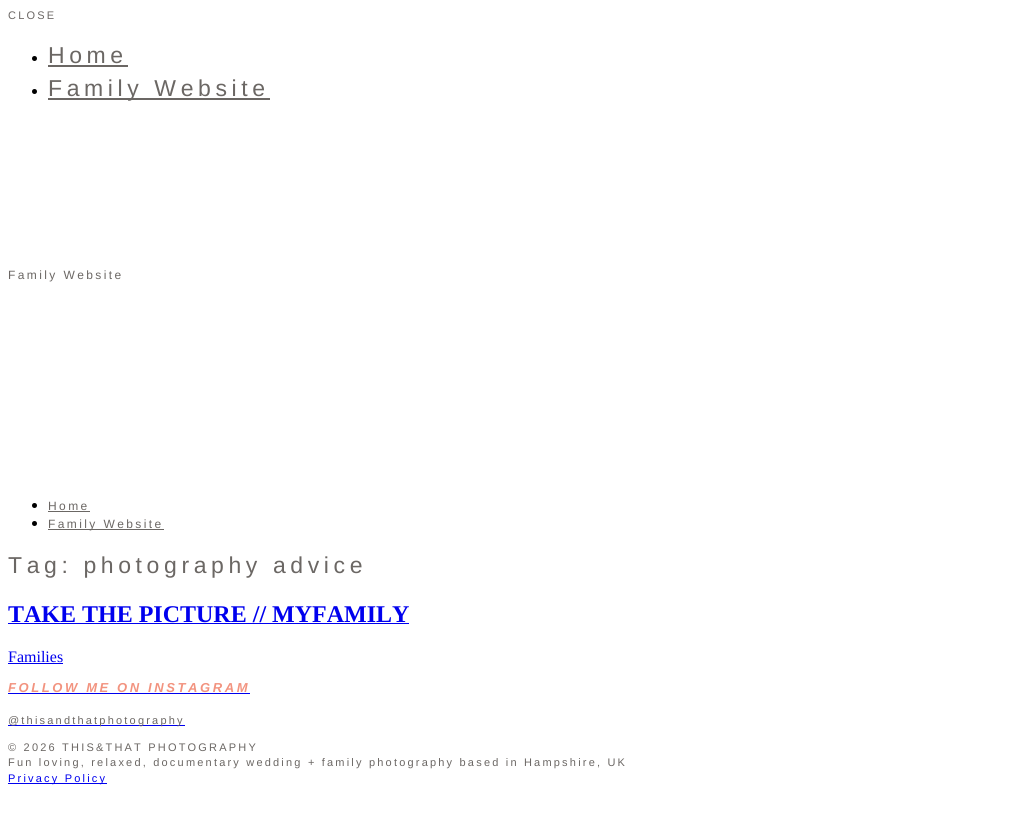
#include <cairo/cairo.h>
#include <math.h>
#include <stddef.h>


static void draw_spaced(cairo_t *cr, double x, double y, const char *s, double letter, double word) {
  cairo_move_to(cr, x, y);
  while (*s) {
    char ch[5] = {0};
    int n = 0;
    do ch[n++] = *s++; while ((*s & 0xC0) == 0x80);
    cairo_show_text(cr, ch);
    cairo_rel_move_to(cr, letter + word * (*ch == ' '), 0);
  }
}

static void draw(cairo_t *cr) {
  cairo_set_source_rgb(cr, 1, 1, 1);
  cairo_paint(cr);
  cairo_set_source_rgb(cr, 0, 0, 0);
  cairo_arc(cr, 34.5, 58.5, 2.5, 0, 2 * M_PI);
  cairo_fill(cr);
  cairo_set_source_rgb(cr, 107 / 255.0, 103 / 255.0, 100 / 255.0);
  cairo_rectangle(cr, 48, 65, 80, 2);
  cairo_fill(cr);
  cairo_set_source_rgb(cr, 0, 0, 0);
  cairo_arc(cr, 34.5, 91.5, 2.5, 0, 2 * M_PI);
  cairo_fill(cr);
  cairo_set_source_rgb(cr, 107 / 255.0, 103 / 255.0, 100 / 255.0);
  cairo_rectangle(cr, 48, 98, 222, 2);
  cairo_fill(cr);
  cairo_set_source_rgb(cr, 0, 0, 0);
  cairo_arc(cr, 34.5, 505.5, 2.5, 0, 2 * M_PI);
  cairo_fill(cr);
  cairo_set_source_rgb(cr, 107 / 255.0, 103 / 255.0, 100 / 255.0);
  cairo_rectangle(cr, 48, 511, 42, 1);
  cairo_fill(cr);
  cairo_set_source_rgb(cr, 0, 0, 0);
  cairo_arc(cr, 34.5, 523.5, 2.5, 0, 2 * M_PI);
  cairo_fill(cr);
  cairo_set_source_rgb(cr, 107 / 255.0, 103 / 255.0, 100 / 255.0);
  cairo_rectangle(cr, 48, 529, 116, 1);
  cairo_fill(cr);
  cairo_set_source_rgb(cr, 0, 0, 238 / 255.0);
  cairo_rectangle(cr, 8, 623, 401, 1);
  cairo_fill(cr);
  cairo_rectangle(cr, 8, 663, 55, 1);
  cairo_fill(cr);
  cairo_rectangle(cr, 8, 693, 242, 1);
  cairo_fill(cr);
  cairo_rectangle(cr, 8, 725, 177, 1);
  cairo_fill(cr);
  cairo_rectangle(cr, 8, 783, 99, 1);
  cairo_fill(cr);
  cairo_select_font_face(cr, "Liberation Sans", CAIRO_FONT_SLANT_NORMAL, CAIRO_FONT_WEIGHT_NORMAL);
  cairo_set_font_size(cr, 11);
  cairo_set_source_rgb(cr, 107 / 255.0, 103 / 255.0, 100 / 255.0);
  draw_spaced(cr, 8, 19, "CLOSE", 2.2, 0);
  cairo_set_font_size(cr, 23);
  draw_spaced(cr, 48, 63, "Home", 4.6, 0);
  draw_spaced(cr, 48, 96, "Family Website", 4.6, 0);
  cairo_set_font_size(cr, 12);
  draw_spaced(cr, 8, 279, "Family Website", 2.4, 0);
  draw_spaced(cr, 48, 510, "Home", 2.4, 0);
  draw_spaced(cr, 48, 528, "Family Website", 2.4, 0);
  cairo_set_font_size(cr, 23);
  draw_spaced(cr, 8, 573, "Tag: photography advice", 4.6, 0);
  cairo_select_font_face(cr, "Liberation Serif", CAIRO_FONT_SLANT_NORMAL, CAIRO_FONT_WEIGHT_BOLD);
  cairo_set_font_size(cr, 24);
  cairo_set_source_rgb(cr, 0, 0, 238 / 255.0);
  cairo_move_to(cr, 8, 622);
  cairo_show_text(cr, "TAKE THE PICTURE // MYFAMILY");
  cairo_select_font_face(cr, "Liberation Serif", CAIRO_FONT_SLANT_NORMAL, CAIRO_FONT_WEIGHT_NORMAL);
  cairo_set_font_size(cr, 16);
  cairo_move_to(cr, 8, 662);
  cairo_show_text(cr, "Families");
  cairo_select_font_face(cr, "Liberation Sans", CAIRO_FONT_SLANT_ITALIC, CAIRO_FONT_WEIGHT_BOLD);
  cairo_set_font_size(cr, 13);
  cairo_set_source_rgb(cr, 242 / 255.0, 147 / 255.0, 127 / 255.0);
  draw_spaced(cr, 8, 692, "FOLLOW ME ON INSTAGRAM", 2.6, 0);
  cairo_select_font_face(cr, "Liberation Sans", CAIRO_FONT_SLANT_NORMAL, CAIRO_FONT_WEIGHT_NORMAL);
  cairo_set_font_size(cr, 11);
  cairo_set_source_rgb(cr, 107 / 255.0, 103 / 255.0, 100 / 255.0);
  draw_spaced(cr, 8, 724, "@thisandthatphotography", 2.2, 0);
  draw_spaced(cr, 8, 751, "© 2026 THIS&THAT PHOTOGRAPHY", 2.2, 0);
  draw_spaced(cr, 8, 766, "Fun loving, relaxed, documentary wedding + family photography based in Hampshire, UK", 2.2, 0);
  cairo_set_source_rgb(cr, 0, 0, 238 / 255.0);
  draw_spaced(cr, 8, 782, "Privacy Policy", 2.2, 0);
}

int main(void) {
  cairo_surface_t *surface = cairo_image_surface_create(CAIRO_FORMAT_RGB24, 1026, 838);
  cairo_t *cr = cairo_create(surface);
  cairo_font_options_t *options = cairo_font_options_create();
  cairo_font_options_set_hint_metrics(options, CAIRO_HINT_METRICS_OFF);
  cairo_font_options_set_hint_style(options, CAIRO_HINT_STYLE_NONE);
  cairo_set_font_options(cr, options);
  cairo_set_miter_limit(cr, 4);
  draw(cr);
  cairo_surface_write_to_png(surface, "out.png");
  cairo_font_options_destroy(options);
  cairo_destroy(cr);
  cairo_surface_destroy(surface);
  return 0;
}
